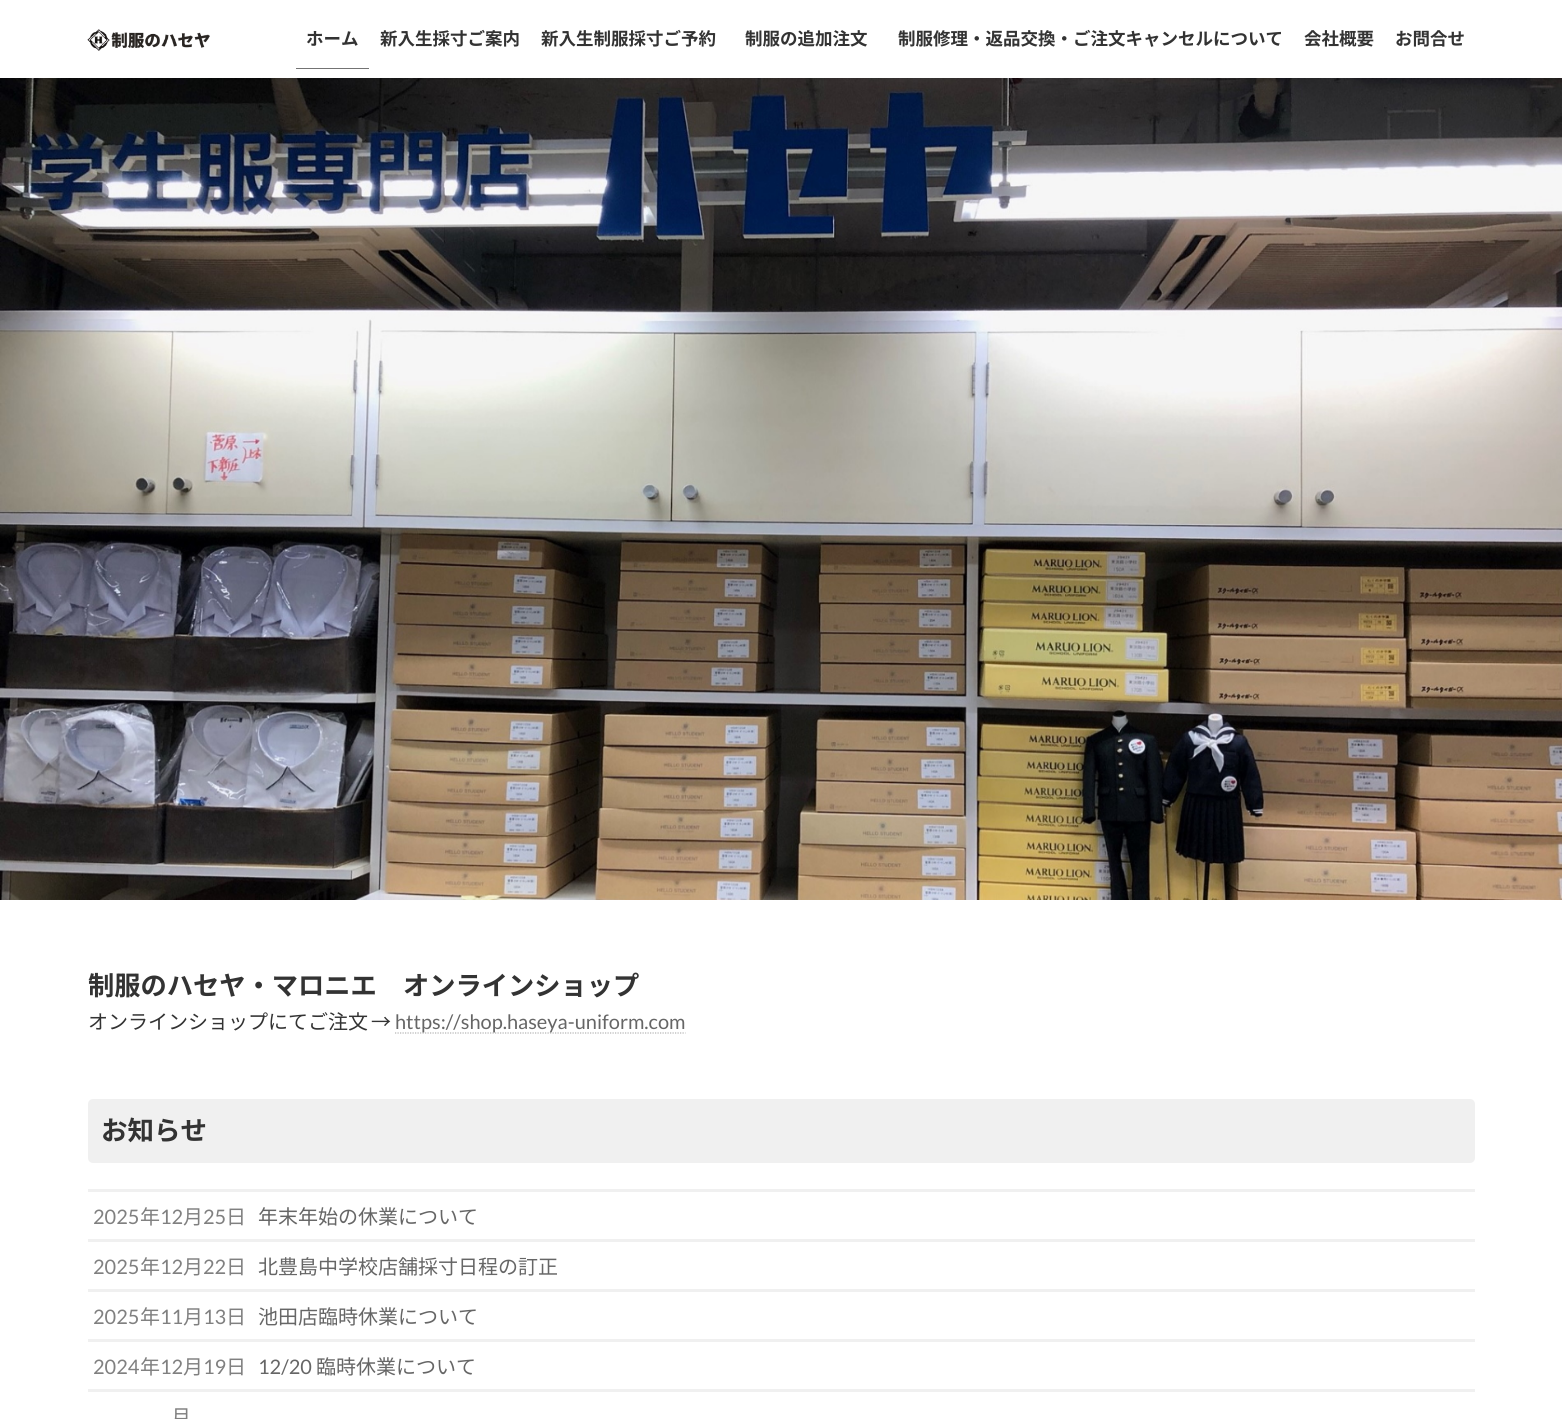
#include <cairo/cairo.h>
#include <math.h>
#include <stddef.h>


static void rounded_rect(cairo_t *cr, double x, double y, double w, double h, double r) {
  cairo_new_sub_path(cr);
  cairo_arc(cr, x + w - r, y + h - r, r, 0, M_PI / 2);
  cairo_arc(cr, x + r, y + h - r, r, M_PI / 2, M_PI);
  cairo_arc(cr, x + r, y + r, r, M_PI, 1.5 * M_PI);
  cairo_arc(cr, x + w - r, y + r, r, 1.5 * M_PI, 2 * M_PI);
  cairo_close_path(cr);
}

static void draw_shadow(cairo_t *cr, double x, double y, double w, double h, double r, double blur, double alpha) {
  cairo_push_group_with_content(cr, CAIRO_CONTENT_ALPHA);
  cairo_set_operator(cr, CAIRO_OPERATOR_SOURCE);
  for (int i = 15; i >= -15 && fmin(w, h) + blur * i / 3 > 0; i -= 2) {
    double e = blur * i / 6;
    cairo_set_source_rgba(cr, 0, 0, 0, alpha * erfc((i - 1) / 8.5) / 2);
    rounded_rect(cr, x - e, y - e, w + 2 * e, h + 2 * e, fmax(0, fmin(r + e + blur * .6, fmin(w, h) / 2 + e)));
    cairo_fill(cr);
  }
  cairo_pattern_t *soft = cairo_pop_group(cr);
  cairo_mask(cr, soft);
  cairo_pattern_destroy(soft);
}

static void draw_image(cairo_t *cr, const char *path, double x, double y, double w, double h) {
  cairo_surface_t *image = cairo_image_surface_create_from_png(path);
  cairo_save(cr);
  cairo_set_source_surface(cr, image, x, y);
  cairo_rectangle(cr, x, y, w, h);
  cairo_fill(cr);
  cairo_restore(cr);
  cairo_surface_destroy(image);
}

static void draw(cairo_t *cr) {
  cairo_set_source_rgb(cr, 1, 1, 1);
  cairo_paint(cr);
  draw_image(cr, "images/2.png", 0, 78, 1562, 822);
  cairo_set_source_rgb(cr, 0, 0, 0);
  draw_shadow(cr, 0, 1, 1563, 78, 0, 2, 0.05);
  cairo_set_source_rgb(cr, 1, 1, 1);
  cairo_rectangle(cr, 0, 0, 1562, 78);
  cairo_fill(cr);
  draw_image(cr, "images/1.png", 87, 29, 123, 22);
  cairo_set_source_rgb(cr, 115 / 255.0, 115 / 255.0, 115 / 255.0);
  cairo_rectangle(cr, 296, 68, 73, 1);
  cairo_fill(cr);
  cairo_new_path(cr);
  cairo_move_to(cr, 395, 1033);
  cairo_line_to(cr, 685.5, 1033);
  cairo_set_source_rgb(cr, 179 / 255.0, 179 / 255.0, 179 / 255.0);
  cairo_set_line_width(cr, 1.2);
  cairo_set_dash(cr, (double[]){1.25, 1.25}, 2, 0);
  cairo_stroke(cr);
  cairo_set_source_rgb(cr, 240 / 255.0, 240 / 255.0, 240 / 255.0);
  rounded_rect(cr, 88, 1099, 1387, 64, 5);
  cairo_fill(cr);
  cairo_rectangle(cr, 88, 1189, 1387, 3);
  cairo_fill(cr);
  cairo_rectangle(cr, 88, 1239, 1387, 3);
  cairo_fill(cr);
  cairo_rectangle(cr, 88, 1289, 1387, 3);
  cairo_fill(cr);
  cairo_rectangle(cr, 88, 1339, 1387, 3);
  cairo_fill(cr);
  cairo_rectangle(cr, 88, 1389, 1387, 3);
  cairo_fill(cr);
  cairo_select_font_face(cr, "Noto Sans JP", CAIRO_FONT_SLANT_NORMAL, CAIRO_FONT_WEIGHT_BOLD);
  cairo_set_font_size(cr, 17.5);
  cairo_set_source_rgb(cr, 51 / 255.0, 51 / 255.0, 51 / 255.0);
  cairo_move_to(cr, 306, 45);
  cairo_show_text(cr, "ホーム");
  cairo_move_to(cr, 380, 45);
  cairo_show_text(cr, "新入生採寸ご案内");
  cairo_move_to(cr, 541, 45);
  cairo_show_text(cr, "新入生制服採寸ご予約");
  cairo_move_to(cr, 745, 45);
  cairo_show_text(cr, "制服の追加注文");
  cairo_move_to(cr, 898, 45);
  cairo_show_text(cr, "制服修理・返品交換・ご注文キャンセルについて");
  cairo_move_to(cr, 1304, 45);
  cairo_show_text(cr, "会社概要");
  cairo_move_to(cr, 1395, 45);
  cairo_show_text(cr, "お問合せ");
  cairo_set_font_size(cr, 26.25);
  cairo_move_to(cr, 88, 995);
  cairo_show_text(cr, "制服のハセヤ・マロニエ　オンラインショップ");
  cairo_select_font_face(cr, "Noto Sans JP", CAIRO_FONT_SLANT_NORMAL, CAIRO_FONT_WEIGHT_NORMAL);
  cairo_set_font_size(cr, 20);
  cairo_move_to(cr, 88, 1029);
  cairo_show_text(cr, "オンラインショップにてご注文");
  cairo_move_to(cr, 371, 1029);
  cairo_show_text(cr, "→");
  cairo_select_font_face(cr, "Lato", CAIRO_FONT_SLANT_NORMAL, CAIRO_FONT_WEIGHT_NORMAL);
  cairo_set_source_rgb(cr, 102 / 255.0, 102 / 255.0, 102 / 255.0);
  cairo_move_to(cr, 395, 1029);
  cairo_show_text(cr, "https://shop.haseya-uniform.com");
  cairo_select_font_face(cr, "Noto Sans JP", CAIRO_FONT_SLANT_NORMAL, CAIRO_FONT_WEIGHT_BOLD);
  cairo_set_font_size(cr, 26.5);
  cairo_set_source_rgb(cr, 51 / 255.0, 51 / 255.0, 51 / 255.0);
  cairo_move_to(cr, 101, 1140);
  cairo_show_text(cr, "お知らせ");
  cairo_select_font_face(cr, "Lato", CAIRO_FONT_SLANT_NORMAL, CAIRO_FONT_WEIGHT_NORMAL);
  cairo_set_font_size(cr, 20);
  cairo_set_source_rgb(cr, 128 / 255.0, 128 / 255.0, 128 / 255.0);
  cairo_move_to(cr, 93, 1224);
  cairo_show_text(cr, "2025");
  cairo_select_font_face(cr, "Noto Sans JP", CAIRO_FONT_SLANT_NORMAL, CAIRO_FONT_WEIGHT_NORMAL);
  cairo_move_to(cr, 140, 1224);
  cairo_show_text(cr, "年");
  cairo_select_font_face(cr, "Lato", CAIRO_FONT_SLANT_NORMAL, CAIRO_FONT_WEIGHT_NORMAL);
  cairo_move_to(cr, 160, 1224);
  cairo_show_text(cr, "12");
  cairo_select_font_face(cr, "Noto Sans JP", CAIRO_FONT_SLANT_NORMAL, CAIRO_FONT_WEIGHT_NORMAL);
  cairo_move_to(cr, 183, 1224);
  cairo_show_text(cr, "月");
  cairo_select_font_face(cr, "Lato", CAIRO_FONT_SLANT_NORMAL, CAIRO_FONT_WEIGHT_NORMAL);
  cairo_move_to(cr, 203, 1224);
  cairo_show_text(cr, "25");
  cairo_select_font_face(cr, "Noto Sans JP", CAIRO_FONT_SLANT_NORMAL, CAIRO_FONT_WEIGHT_NORMAL);
  cairo_move_to(cr, 226, 1224);
  cairo_show_text(cr, "日");
  cairo_set_source_rgb(cr, 102 / 255.0, 102 / 255.0, 102 / 255.0);
  cairo_move_to(cr, 258, 1224);
  cairo_show_text(cr, "年末年始の休業について");
  cairo_select_font_face(cr, "Lato", CAIRO_FONT_SLANT_NORMAL, CAIRO_FONT_WEIGHT_NORMAL);
  cairo_set_source_rgb(cr, 128 / 255.0, 128 / 255.0, 128 / 255.0);
  cairo_move_to(cr, 93, 1274);
  cairo_show_text(cr, "2025");
  cairo_select_font_face(cr, "Noto Sans JP", CAIRO_FONT_SLANT_NORMAL, CAIRO_FONT_WEIGHT_NORMAL);
  cairo_move_to(cr, 140, 1274);
  cairo_show_text(cr, "年");
  cairo_select_font_face(cr, "Lato", CAIRO_FONT_SLANT_NORMAL, CAIRO_FONT_WEIGHT_NORMAL);
  cairo_move_to(cr, 160, 1274);
  cairo_show_text(cr, "12");
  cairo_select_font_face(cr, "Noto Sans JP", CAIRO_FONT_SLANT_NORMAL, CAIRO_FONT_WEIGHT_NORMAL);
  cairo_move_to(cr, 183, 1274);
  cairo_show_text(cr, "月");
  cairo_select_font_face(cr, "Lato", CAIRO_FONT_SLANT_NORMAL, CAIRO_FONT_WEIGHT_NORMAL);
  cairo_move_to(cr, 203, 1274);
  cairo_show_text(cr, "22");
  cairo_select_font_face(cr, "Noto Sans JP", CAIRO_FONT_SLANT_NORMAL, CAIRO_FONT_WEIGHT_NORMAL);
  cairo_move_to(cr, 226, 1274);
  cairo_show_text(cr, "日");
  cairo_set_source_rgb(cr, 102 / 255.0, 102 / 255.0, 102 / 255.0);
  cairo_move_to(cr, 258, 1274);
  cairo_show_text(cr, "北豊島中学校店舗採寸日程の訂正");
  cairo_select_font_face(cr, "Lato", CAIRO_FONT_SLANT_NORMAL, CAIRO_FONT_WEIGHT_NORMAL);
  cairo_set_source_rgb(cr, 128 / 255.0, 128 / 255.0, 128 / 255.0);
  cairo_move_to(cr, 93, 1324);
  cairo_show_text(cr, "2025");
  cairo_select_font_face(cr, "Noto Sans JP", CAIRO_FONT_SLANT_NORMAL, CAIRO_FONT_WEIGHT_NORMAL);
  cairo_move_to(cr, 140, 1324);
  cairo_show_text(cr, "年");
  cairo_select_font_face(cr, "Lato", CAIRO_FONT_SLANT_NORMAL, CAIRO_FONT_WEIGHT_NORMAL);
  cairo_move_to(cr, 160, 1324);
  cairo_show_text(cr, "11");
  cairo_select_font_face(cr, "Noto Sans JP", CAIRO_FONT_SLANT_NORMAL, CAIRO_FONT_WEIGHT_NORMAL);
  cairo_move_to(cr, 183, 1324);
  cairo_show_text(cr, "月");
  cairo_select_font_face(cr, "Lato", CAIRO_FONT_SLANT_NORMAL, CAIRO_FONT_WEIGHT_NORMAL);
  cairo_move_to(cr, 203, 1324);
  cairo_show_text(cr, "13");
  cairo_select_font_face(cr, "Noto Sans JP", CAIRO_FONT_SLANT_NORMAL, CAIRO_FONT_WEIGHT_NORMAL);
  cairo_move_to(cr, 226, 1324);
  cairo_show_text(cr, "日");
  cairo_set_source_rgb(cr, 102 / 255.0, 102 / 255.0, 102 / 255.0);
  cairo_move_to(cr, 258, 1324);
  cairo_show_text(cr, "池田店臨時休業について");
  cairo_select_font_face(cr, "Lato", CAIRO_FONT_SLANT_NORMAL, CAIRO_FONT_WEIGHT_NORMAL);
  cairo_set_source_rgb(cr, 128 / 255.0, 128 / 255.0, 128 / 255.0);
  cairo_move_to(cr, 93, 1374);
  cairo_show_text(cr, "2024");
  cairo_select_font_face(cr, "Noto Sans JP", CAIRO_FONT_SLANT_NORMAL, CAIRO_FONT_WEIGHT_NORMAL);
  cairo_move_to(cr, 140, 1374);
  cairo_show_text(cr, "年");
  cairo_select_font_face(cr, "Lato", CAIRO_FONT_SLANT_NORMAL, CAIRO_FONT_WEIGHT_NORMAL);
  cairo_move_to(cr, 160, 1374);
  cairo_show_text(cr, "12");
  cairo_select_font_face(cr, "Noto Sans JP", CAIRO_FONT_SLANT_NORMAL, CAIRO_FONT_WEIGHT_NORMAL);
  cairo_move_to(cr, 183, 1374);
  cairo_show_text(cr, "月");
  cairo_select_font_face(cr, "Lato", CAIRO_FONT_SLANT_NORMAL, CAIRO_FONT_WEIGHT_NORMAL);
  cairo_move_to(cr, 203, 1374);
  cairo_show_text(cr, "19");
  cairo_select_font_face(cr, "Noto Sans JP", CAIRO_FONT_SLANT_NORMAL, CAIRO_FONT_WEIGHT_NORMAL);
  cairo_move_to(cr, 226, 1374);
  cairo_show_text(cr, "日");
  cairo_select_font_face(cr, "Lato", CAIRO_FONT_SLANT_NORMAL, CAIRO_FONT_WEIGHT_NORMAL);
  cairo_set_source_rgb(cr, 102 / 255.0, 102 / 255.0, 102 / 255.0);
  cairo_move_to(cr, 258, 1374);
  cairo_show_text(cr, "12/20");
  cairo_select_font_face(cr, "Noto Sans JP", CAIRO_FONT_SLANT_NORMAL, CAIRO_FONT_WEIGHT_NORMAL);
  cairo_move_to(cr, 316, 1374);
  cairo_show_text(cr, "臨時休業について");
  cairo_set_source_rgb(cr, 128 / 255.0, 128 / 255.0, 128 / 255.0);
  cairo_move_to(cr, 171, 1424);
  cairo_show_text(cr, "月");
}

int main(void) {
  cairo_surface_t *surface = cairo_image_surface_create(CAIRO_FORMAT_RGB24, 1562, 1419);
  cairo_t *cr = cairo_create(surface);
  cairo_font_options_t *options = cairo_font_options_create();
  cairo_font_options_set_hint_metrics(options, CAIRO_HINT_METRICS_OFF);
  cairo_font_options_set_hint_style(options, CAIRO_HINT_STYLE_NONE);
  cairo_set_font_options(cr, options);
  cairo_set_miter_limit(cr, 4);
  draw(cr);
  cairo_surface_write_to_png(surface, "out.png");
  cairo_font_options_destroy(options);
  cairo_destroy(cr);
  cairo_surface_destroy(surface);
  return 0;
}
